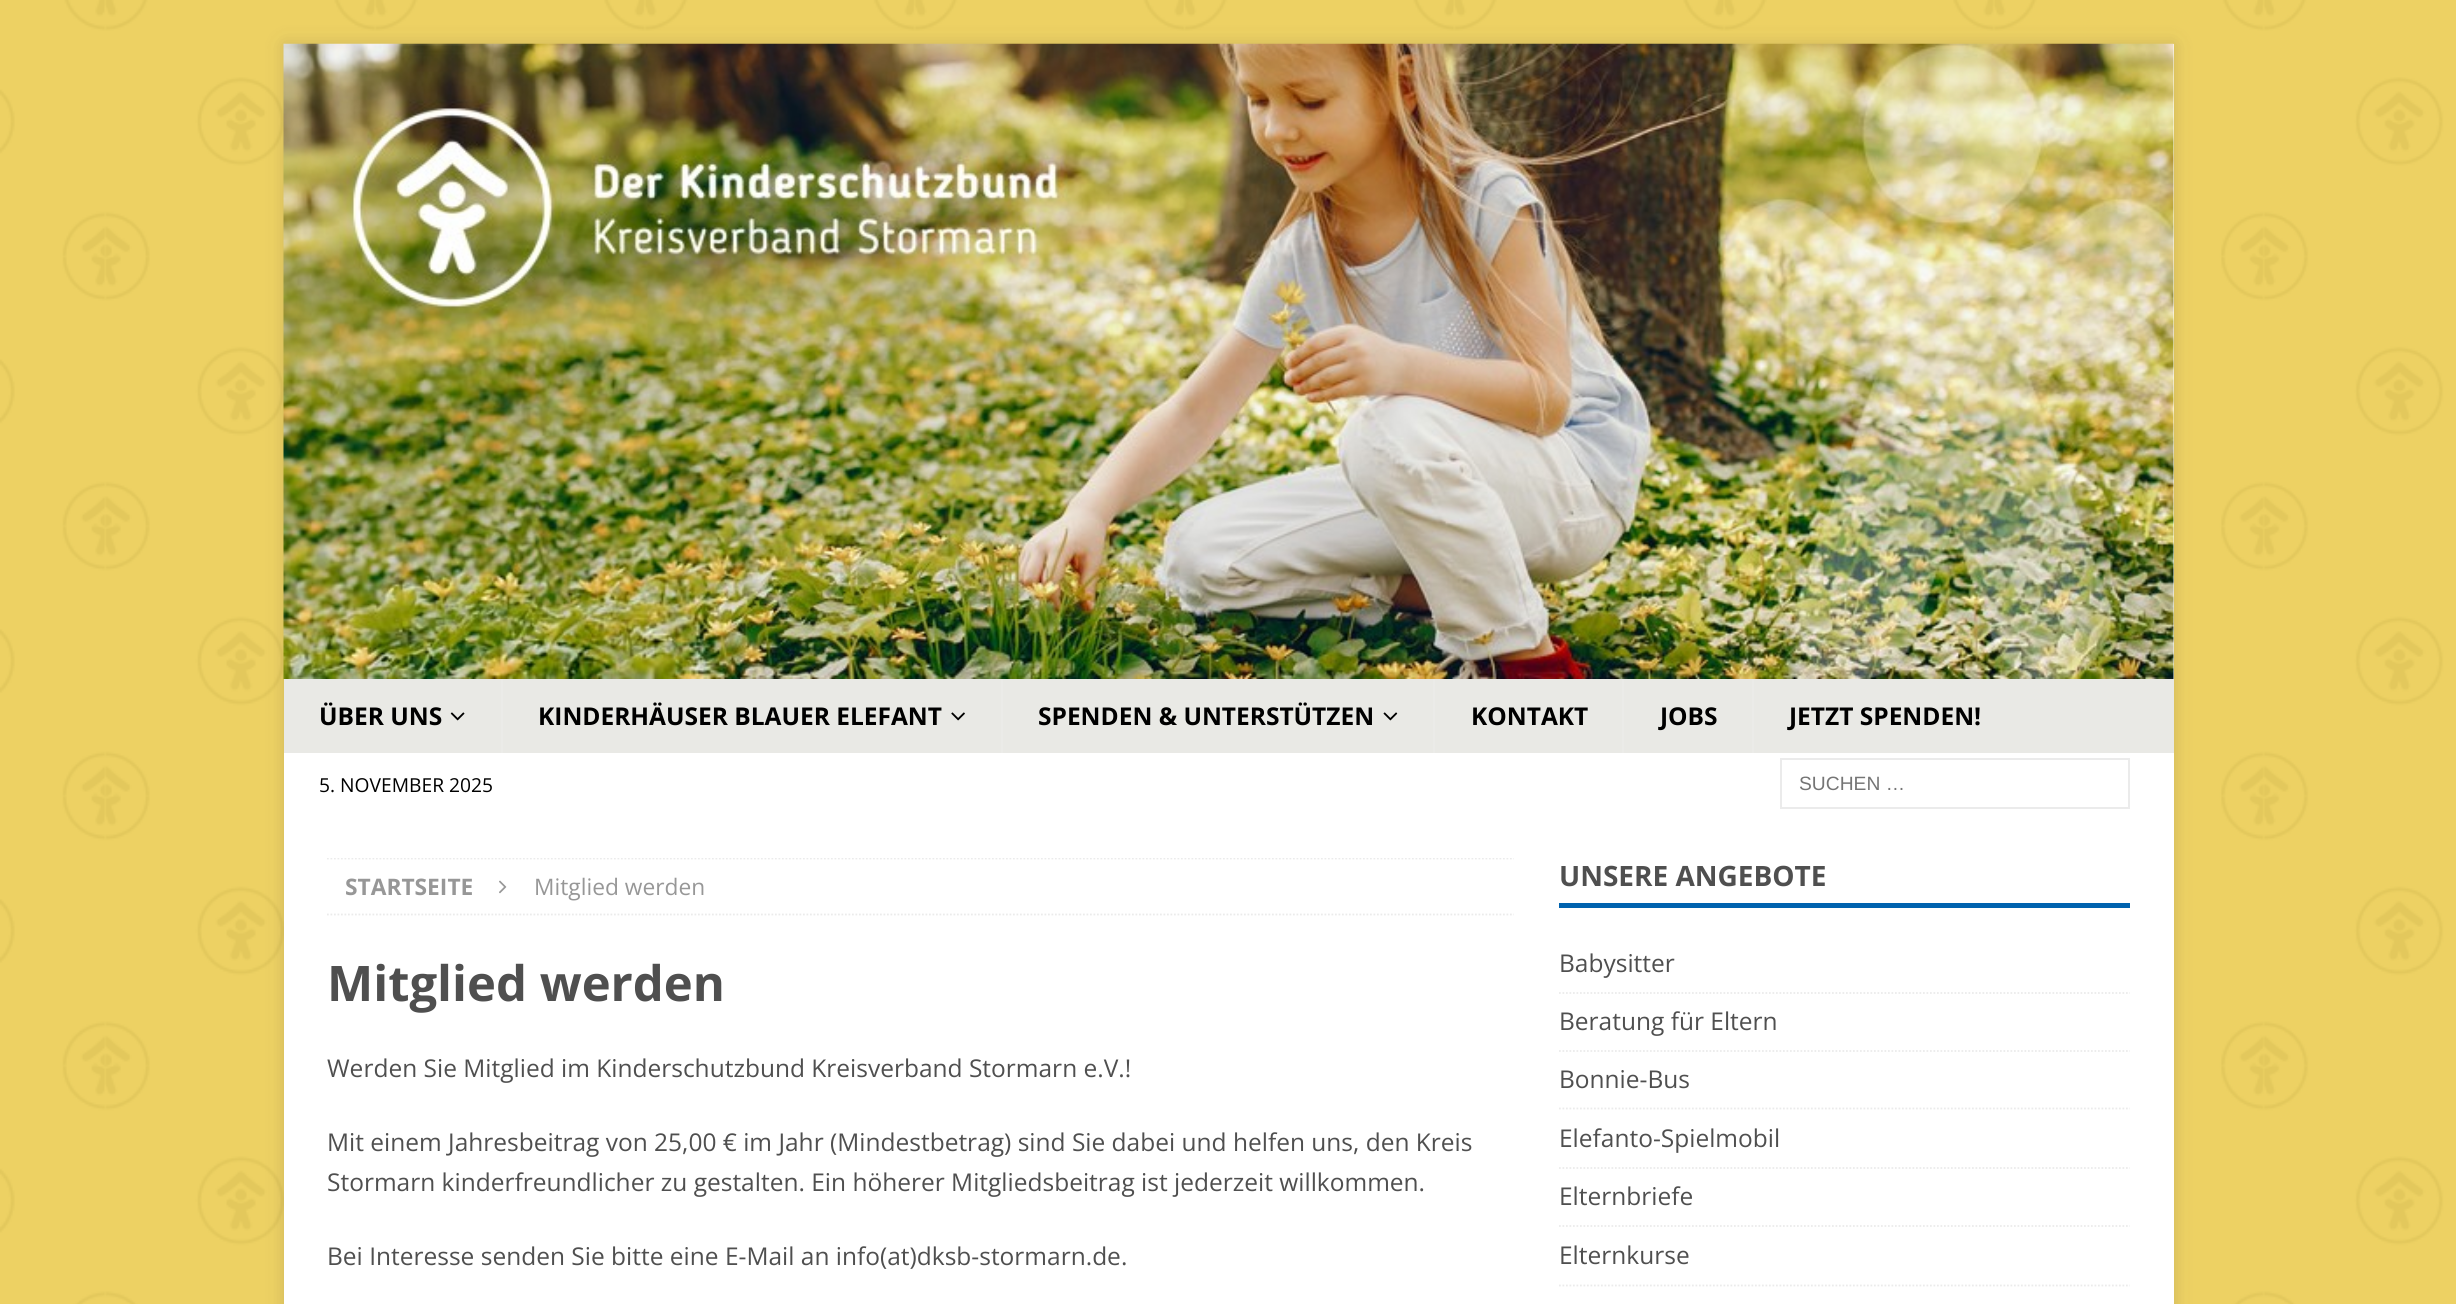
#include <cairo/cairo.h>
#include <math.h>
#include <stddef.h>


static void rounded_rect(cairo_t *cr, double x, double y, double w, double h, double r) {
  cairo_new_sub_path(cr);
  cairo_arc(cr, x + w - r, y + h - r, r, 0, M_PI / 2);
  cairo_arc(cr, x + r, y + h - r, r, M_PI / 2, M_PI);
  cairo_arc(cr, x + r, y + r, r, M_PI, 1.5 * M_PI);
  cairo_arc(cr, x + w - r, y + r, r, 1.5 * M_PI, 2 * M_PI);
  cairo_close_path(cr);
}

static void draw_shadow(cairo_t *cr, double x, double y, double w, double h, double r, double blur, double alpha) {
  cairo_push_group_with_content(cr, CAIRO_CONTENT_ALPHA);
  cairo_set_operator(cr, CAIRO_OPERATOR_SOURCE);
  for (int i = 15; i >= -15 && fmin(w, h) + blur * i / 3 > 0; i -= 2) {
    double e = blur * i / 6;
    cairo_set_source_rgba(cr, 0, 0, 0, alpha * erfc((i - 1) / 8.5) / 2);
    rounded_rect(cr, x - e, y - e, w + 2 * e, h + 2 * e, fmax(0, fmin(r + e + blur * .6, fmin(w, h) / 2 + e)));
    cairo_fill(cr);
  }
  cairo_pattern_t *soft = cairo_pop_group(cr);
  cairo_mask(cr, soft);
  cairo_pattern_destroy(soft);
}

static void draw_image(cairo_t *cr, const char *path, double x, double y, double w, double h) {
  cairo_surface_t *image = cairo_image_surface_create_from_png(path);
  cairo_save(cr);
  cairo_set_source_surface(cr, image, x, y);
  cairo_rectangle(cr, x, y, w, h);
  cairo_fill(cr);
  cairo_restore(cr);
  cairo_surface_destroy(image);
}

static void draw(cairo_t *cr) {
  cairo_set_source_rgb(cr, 1, 1, 1);
  cairo_paint(cr);
  draw_image(cr, "images/1.png", 0, 0, 2456, 1304);
  cairo_set_source_rgb(cr, 50 / 255.0, 50 / 255.0, 50 / 255.0);
  draw_shadow(cr, 284, 44, 1890, 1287, 0, 9, 0.17);
  cairo_set_source_rgb(cr, 1, 1, 1);
  cairo_rectangle(cr, 2173, 44, 1, 635);
  cairo_fill(cr);
  draw_image(cr, "images/2.png", 283, 43, 1891, 636);
  cairo_set_source_rgb(cr, 233 / 255.0, 233 / 255.0, 229 / 255.0);
  cairo_rectangle(cr, 284, 679, 1890, 74);
  cairo_fill(cr);
  draw_image(cr, "images/3.png", 450, 712, 15, 9);
  cairo_set_source_rgb(cr, 235 / 255.0, 235 / 255.0, 232 / 255.0);
  cairo_rectangle(cr, 501, 679, 2, 74);
  cairo_fill(cr);
  draw_image(cr, "images/4.png", 951, 712, 14, 9);
  cairo_rectangle(cr, 1001, 679, 2, 74);
  cairo_fill(cr);
  draw_image(cr, "images/5.png", 1383, 712, 15, 9);
  cairo_rectangle(cr, 1433, 679, 2, 74);
  cairo_fill(cr);
  cairo_rectangle(cr, 1622, 679, 2, 74);
  cairo_fill(cr);
  cairo_rectangle(cr, 1752, 679, 2, 74);
  cairo_fill(cr);
  cairo_set_source_rgb(cr, 1, 1, 1);
  cairo_rectangle(cr, 284, 753, 1890, 551);
  cairo_fill(cr);
  cairo_rectangle(cr, 1781, 759, 348, 49);
  cairo_set_source_rgb(cr, 235 / 255.0, 235 / 255.0, 235 / 255.0);
  cairo_stroke(cr);
  cairo_save(cr);
  cairo_rectangle(cr, 327, 858, 1187, 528);
  cairo_clip(cr);
  cairo_new_path(cr);
  cairo_move_to(cr, 327, 858.5);
  cairo_line_to(cr, 1514, 858.5);
  cairo_set_line_width(cr, 1.8);
  cairo_set_dash(cr, (double[]){1.75, 1.75}, 2, 0);
  cairo_stroke(cr);
  cairo_restore(cr);
  cairo_new_path(cr);
  cairo_move_to(cr, 327, 914.5);
  cairo_line_to(cr, 1514, 914.5);
  cairo_set_line_width(cr, 1.8);
  cairo_set_dash(cr, (double[]){1.75, 1.75}, 2, 0);
  cairo_stroke(cr);
  draw_image(cr, "images/6.png", 499, 880, 8, 14);
  cairo_set_source_rgb(cr, 0, 99 / 255.0, 175 / 255.0);
  cairo_rectangle(cr, 1559, 903, 571, 5);
  cairo_fill(cr);
  cairo_new_path(cr);
  cairo_move_to(cr, 1559, 993);
  cairo_line_to(cr, 2130, 993);
  cairo_set_source_rgb(cr, 235 / 255.0, 235 / 255.0, 235 / 255.0);
  cairo_stroke(cr);
  cairo_new_path(cr);
  cairo_move_to(cr, 1559, 1051);
  cairo_line_to(cr, 2130, 1051);
  cairo_stroke(cr);
  cairo_new_path(cr);
  cairo_move_to(cr, 1559, 1108.5);
  cairo_line_to(cr, 2130, 1108.5);
  cairo_stroke(cr);
  cairo_new_path(cr);
  cairo_move_to(cr, 1559, 1168);
  cairo_line_to(cr, 2130, 1168);
  cairo_stroke(cr);
  cairo_new_path(cr);
  cairo_move_to(cr, 1559, 1226);
  cairo_line_to(cr, 2130, 1226);
  cairo_stroke(cr);
  cairo_new_path(cr);
  cairo_move_to(cr, 1559, 1285.5);
  cairo_line_to(cr, 2130, 1285.5);
  cairo_stroke(cr);
  cairo_select_font_face(cr, "Open Sans", CAIRO_FONT_SLANT_NORMAL, CAIRO_FONT_WEIGHT_BOLD);
  cairo_set_font_size(cr, 24.5);
  cairo_set_source_rgb(cr, 0, 0, 0);
  cairo_move_to(cr, 319, 725);
  cairo_show_text(cr, "ÜBER UNS");
  cairo_move_to(cr, 538, 725);
  cairo_show_text(cr, "KINDERHÄUSER BLAUER ELEFANT");
  cairo_move_to(cr, 1038, 725);
  cairo_show_text(cr, "SPENDEN & UNTERSTÜTZEN");
  cairo_move_to(cr, 1471, 725);
  cairo_show_text(cr, "KONTAKT");
  cairo_move_to(cr, 1660, 725);
  cairo_show_text(cr, "JOBS");
  cairo_move_to(cr, 1789, 725);
  cairo_show_text(cr, "JETZT SPENDEN!");
  cairo_select_font_face(cr, "Open Sans", CAIRO_FONT_SLANT_NORMAL, CAIRO_FONT_WEIGHT_NORMAL);
  cairo_set_font_size(cr, 19.25);
  cairo_move_to(cr, 319, 792);
  cairo_show_text(cr, "5. NOVEMBER 2025");
  cairo_select_font_face(cr, "Liberation Sans", CAIRO_FONT_SLANT_NORMAL, CAIRO_FONT_WEIGHT_NORMAL);
  cairo_set_source_rgb(cr, 117 / 255.0, 117 / 255.0, 117 / 255.0);
  cairo_move_to(cr, 1799, 790);
  cairo_show_text(cr, "SUCHEN …");
  cairo_select_font_face(cr, "Open Sans", CAIRO_FONT_SLANT_NORMAL, CAIRO_FONT_WEIGHT_BOLD);
  cairo_set_font_size(cr, 22.75);
  cairo_set_source_rgb(cr, 151 / 255.0, 151 / 255.0, 151 / 255.0);
  cairo_move_to(cr, 345, 895);
  cairo_show_text(cr, "STARTSEITE");
  cairo_select_font_face(cr, "Open Sans", CAIRO_FONT_SLANT_NORMAL, CAIRO_FONT_WEIGHT_NORMAL);
  cairo_move_to(cr, 534, 895);
  cairo_show_text(cr, "Mitglied werden");
  cairo_select_font_face(cr, "Open Sans", CAIRO_FONT_SLANT_NORMAL, CAIRO_FONT_WEIGHT_BOLD);
  cairo_set_font_size(cr, 49);
  cairo_set_source_rgb(cr, 79 / 255.0, 79 / 255.0, 79 / 255.0);
  cairo_move_to(cr, 327, 1001);
  cairo_show_text(cr, "Mitglied werden");
  cairo_select_font_face(cr, "Open Sans", CAIRO_FONT_SLANT_NORMAL, CAIRO_FONT_WEIGHT_NORMAL);
  cairo_set_font_size(cr, 24.5);
  cairo_move_to(cr, 327, 1077);
  cairo_show_text(cr, "Werden Sie Mitglied im Kinderschutzbund Kreisverband Stormarn e.V.!");
  cairo_move_to(cr, 327, 1151);
  cairo_show_text(cr, "Mit einem Jahresbeitrag von 25,00 € im Jahr (Mindestbetrag) sind Sie dabei und helfen uns, den Kreis");
  cairo_move_to(cr, 327, 1191);
  cairo_show_text(cr, "Stormarn kinderfreundlicher zu gestalten. Ein höherer Mitgliedsbeitrag ist jederzeit willkommen.");
  cairo_move_to(cr, 327, 1265);
  cairo_show_text(cr, "Bei Interesse senden Sie bitte eine E-Mail an info(at)dksb-stormarn.de.");
  cairo_select_font_face(cr, "Open Sans", CAIRO_FONT_SLANT_NORMAL, CAIRO_FONT_WEIGHT_BOLD);
  cairo_set_font_size(cr, 28);
  cairo_move_to(cr, 1559, 886);
  cairo_show_text(cr, "UNSERE ANGEBOTE");
  cairo_select_font_face(cr, "Open Sans", CAIRO_FONT_SLANT_NORMAL, CAIRO_FONT_WEIGHT_NORMAL);
  cairo_set_font_size(cr, 24.5);
  cairo_move_to(cr, 1559, 972);
  cairo_show_text(cr, "Babysitter");
  cairo_move_to(cr, 1559, 1030);
  cairo_show_text(cr, "Beratung für Eltern");
  cairo_move_to(cr, 1559, 1088);
  cairo_show_text(cr, "Bonnie-Bus");
  cairo_move_to(cr, 1559, 1147);
  cairo_show_text(cr, "Elefanto-Spielmobil");
  cairo_move_to(cr, 1559, 1205);
  cairo_show_text(cr, "Elternbriefe");
  cairo_move_to(cr, 1559, 1264);
  cairo_show_text(cr, "Elternkurse");
}

int main(void) {
  cairo_surface_t *surface = cairo_image_surface_create(CAIRO_FORMAT_RGB24, 2456, 1304);
  cairo_t *cr = cairo_create(surface);
  cairo_font_options_t *options = cairo_font_options_create();
  cairo_font_options_set_hint_metrics(options, CAIRO_HINT_METRICS_OFF);
  cairo_font_options_set_hint_style(options, CAIRO_HINT_STYLE_NONE);
  cairo_set_font_options(cr, options);
  cairo_set_miter_limit(cr, 4);
  draw(cr);
  cairo_surface_write_to_png(surface, "out.png");
  cairo_font_options_destroy(options);
  cairo_destroy(cr);
  cairo_surface_destroy(surface);
  return 0;
}
